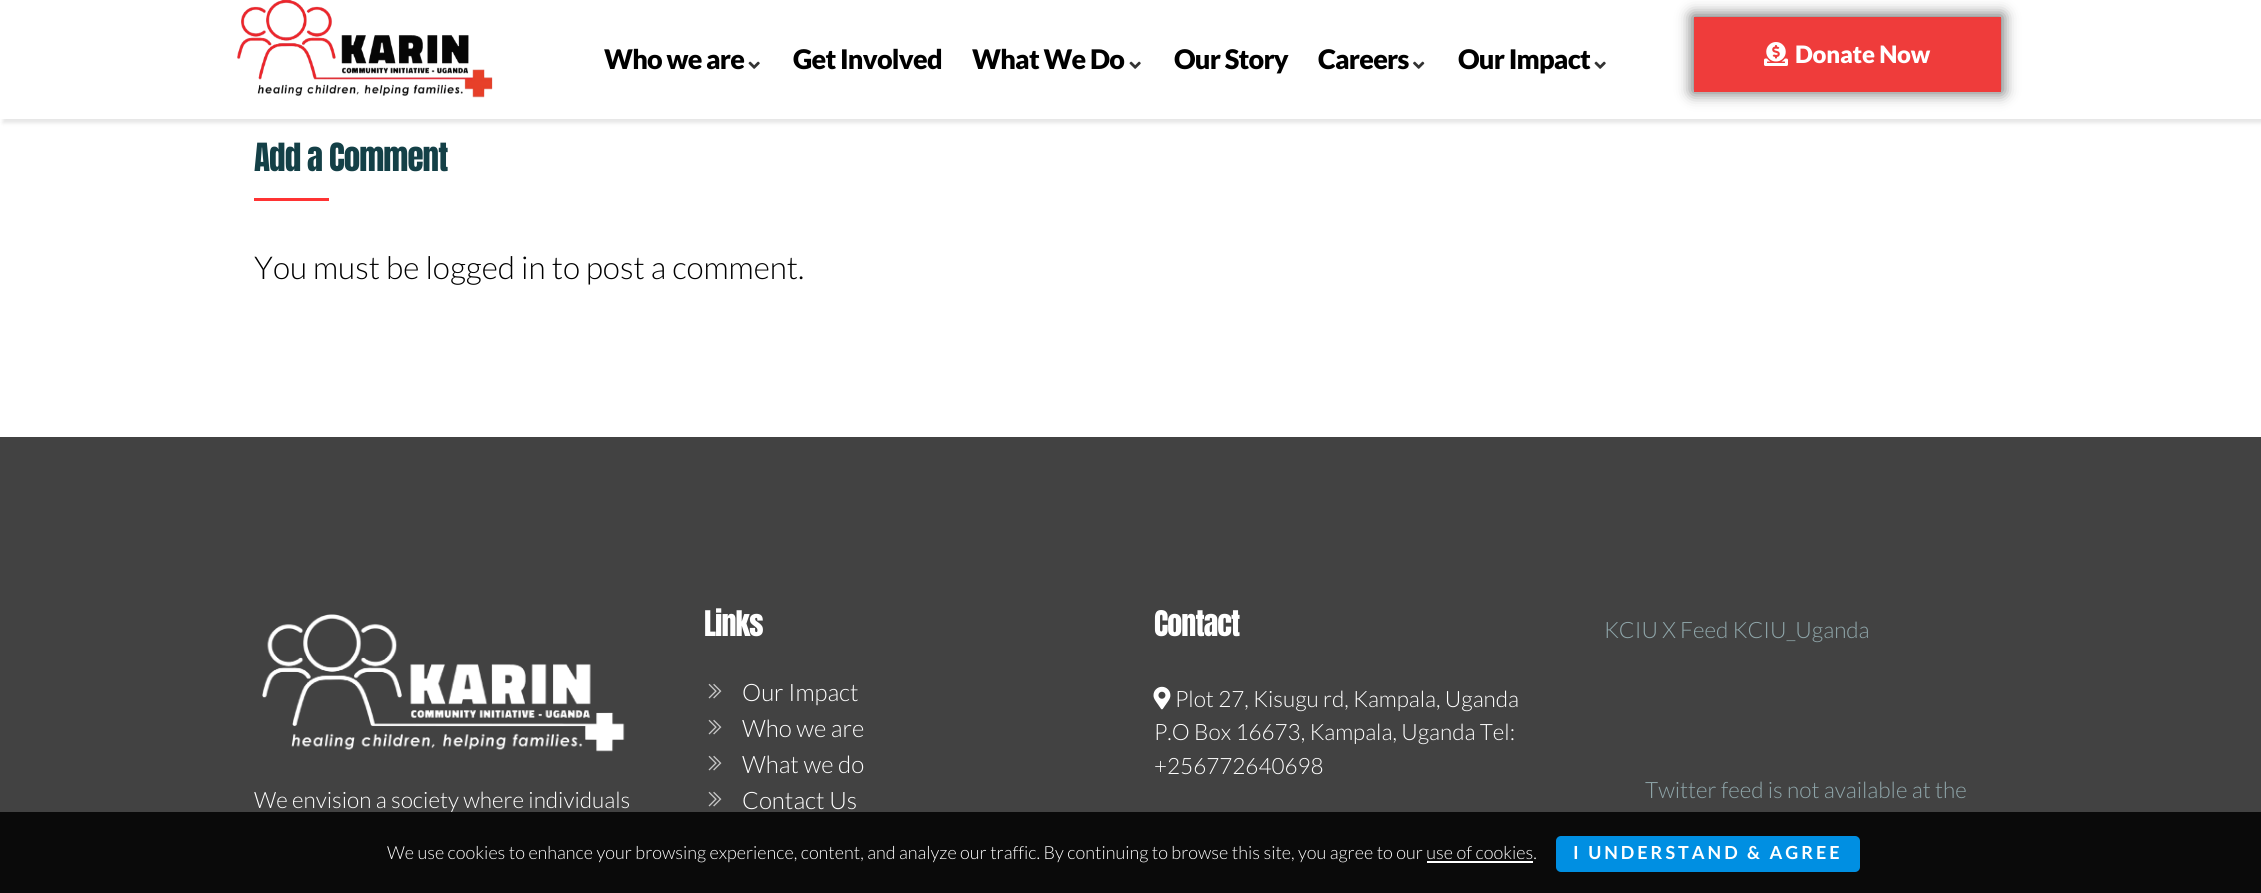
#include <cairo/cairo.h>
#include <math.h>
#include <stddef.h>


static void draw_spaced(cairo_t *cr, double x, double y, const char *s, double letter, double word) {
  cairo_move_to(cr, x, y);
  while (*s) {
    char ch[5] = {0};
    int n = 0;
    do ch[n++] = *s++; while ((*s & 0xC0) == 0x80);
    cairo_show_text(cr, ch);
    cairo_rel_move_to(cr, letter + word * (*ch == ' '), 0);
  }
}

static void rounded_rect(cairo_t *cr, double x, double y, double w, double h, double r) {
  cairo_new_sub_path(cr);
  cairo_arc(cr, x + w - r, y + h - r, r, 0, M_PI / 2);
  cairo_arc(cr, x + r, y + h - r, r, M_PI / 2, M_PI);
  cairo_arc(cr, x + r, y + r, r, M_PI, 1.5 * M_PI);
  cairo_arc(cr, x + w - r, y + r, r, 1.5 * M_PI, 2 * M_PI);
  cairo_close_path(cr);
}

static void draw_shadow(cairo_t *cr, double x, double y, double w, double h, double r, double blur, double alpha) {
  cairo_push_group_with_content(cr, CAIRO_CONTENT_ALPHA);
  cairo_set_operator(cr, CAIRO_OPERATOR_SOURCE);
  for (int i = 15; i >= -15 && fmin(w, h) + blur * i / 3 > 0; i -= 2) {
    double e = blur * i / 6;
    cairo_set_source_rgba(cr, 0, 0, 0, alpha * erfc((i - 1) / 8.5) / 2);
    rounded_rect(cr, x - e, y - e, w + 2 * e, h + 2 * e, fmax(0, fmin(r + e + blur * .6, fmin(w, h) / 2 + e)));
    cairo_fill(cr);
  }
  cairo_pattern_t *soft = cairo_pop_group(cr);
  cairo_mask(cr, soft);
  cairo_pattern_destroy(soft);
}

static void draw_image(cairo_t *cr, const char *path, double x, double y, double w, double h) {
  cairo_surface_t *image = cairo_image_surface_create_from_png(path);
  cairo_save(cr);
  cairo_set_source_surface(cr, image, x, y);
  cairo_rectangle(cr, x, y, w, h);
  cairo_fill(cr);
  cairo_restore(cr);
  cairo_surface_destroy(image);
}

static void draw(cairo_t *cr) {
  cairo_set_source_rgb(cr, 1, 1, 1);
  cairo_paint(cr);
  cairo_set_source_rgb(cr, 0, 0, 0);
  draw_shadow(cr, 3, -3, 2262, 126, 0, 2, 0.1);
  cairo_set_source_rgb(cr, 1, 1, 1);
  cairo_rectangle(cr, 0, 0, 2261, 119);
  cairo_fill(cr);
  draw_image(cr, "images/1.png", 237, 0, 256, 98);
  draw_image(cr, "images/2.png", 748, 61, 12, 8);
  draw_image(cr, "images/2.png", 1129, 61, 12, 8);
  draw_image(cr, "images/3.png", 1413, 61, 12, 8);
  draw_image(cr, "images/2.png", 1594, 61, 12, 8);
  cairo_set_source_rgb(cr, 0, 0, 0);
  draw_shadow(cr, 1692, 15, 311, 78, 0, 7.5, 0.59);
  cairo_set_source_rgb(cr, 239 / 255.0, 60 / 255.0, 59 / 255.0);
  cairo_rectangle(cr, 1694, 17, 307, 75);
  cairo_fill(cr);
  draw_image(cr, "images/4.png", 1764, 42, 24, 24);
  cairo_set_source_rgb(cr, 1, 51 / 255.0, 51 / 255.0);
  cairo_rectangle(cr, 254, 198, 75, 3);
  cairo_fill(cr);
  cairo_set_source_rgb(cr, 66 / 255.0, 66 / 255.0, 66 / 255.0);
  cairo_rectangle(cr, 0, 437, 2261, 375);
  cairo_fill(cr);
  draw_image(cr, "images/5.png", 708, 683, 14, 16);
  draw_image(cr, "images/5.png", 708, 719, 14, 16);
  draw_image(cr, "images/5.png", 708, 755, 14, 16);
  draw_image(cr, "images/5.png", 708, 791, 14, 16);
  draw_image(cr, "images/6.png", 1153, 686, 18, 24);
  draw_image(cr, "images/7.png", 262, 614, 363, 138);
  cairo_set_source_rgb(cr, 10 / 255.0, 10 / 255.0, 10 / 255.0);
  cairo_rectangle(cr, 0, 812, 2261, 81);
  cairo_fill(cr);
  cairo_set_source_rgb(cr, 0, 143 / 255.0, 226 / 255.0);
  rounded_rect(cr, 1556, 836, 304, 36, 5);
  cairo_fill(cr);
  cairo_set_source_rgb(cr, 1, 1, 1);
  cairo_rectangle(cr, 1427, 861, 106, 2);
  cairo_fill(cr);
  cairo_select_font_face(cr, "Lato Black", CAIRO_FONT_SLANT_NORMAL, CAIRO_FONT_WEIGHT_NORMAL);
  cairo_set_font_size(cr, 27);
  cairo_set_source_rgb(cr, 0, 0, 0);
  draw_spaced(cr, 604, 69, "Who we are", -0.75, 0);
  draw_spaced(cr, 793, 69, "Get Involved", -0.75, 0);
  draw_spaced(cr, 972, 69, "What We Do", -0.75, 0);
  draw_spaced(cr, 1174, 69, "Our Story", -0.75, 0);
  draw_spaced(cr, 1318, 69, "Careers", -0.75, 0);
  draw_spaced(cr, 1458, 69, "Our Impact", -0.75, 0);
  cairo_set_font_size(cr, 24);
  cairo_set_source_rgb(cr, 1, 1, 1);
  draw_spaced(cr, 1795, 63, "Donate Now", -0.25, 0);
  cairo_select_font_face(cr, "Anton", CAIRO_FONT_SLANT_NORMAL, CAIRO_FONT_WEIGHT_NORMAL);
  cairo_set_font_size(cr, 33);
  cairo_set_source_rgb(cr, 20 / 255.0, 64 / 255.0, 71 / 255.0);
  draw_spaced(cr, 254, 171, "Add a Comment", -0.9, 0);
  cairo_select_font_face(cr, "Lato Light", CAIRO_FONT_SLANT_NORMAL, CAIRO_FONT_WEIGHT_NORMAL);
  cairo_set_font_size(cr, 31.5);
  cairo_set_source_rgb(cr, 0, 0, 0);
  cairo_move_to(cr, 254, 279);
  cairo_show_text(cr, "You must be logged in to post a comment.");
  cairo_select_font_face(cr, "Anton", CAIRO_FONT_SLANT_NORMAL, CAIRO_FONT_WEIGHT_NORMAL);
  cairo_set_font_size(cr, 30);
  cairo_set_source_rgb(cr, 1, 1, 1);
  draw_spaced(cr, 704, 636, "Links", -0.9, 0);
  cairo_select_font_face(cr, "Lato Light", CAIRO_FONT_SLANT_NORMAL, CAIRO_FONT_WEIGHT_NORMAL);
  cairo_set_font_size(cr, 24);
  cairo_move_to(cr, 742, 701);
  cairo_show_text(cr, "Our Impact");
  cairo_move_to(cr, 742, 737);
  cairo_show_text(cr, "Who we are");
  cairo_move_to(cr, 742, 773);
  cairo_show_text(cr, "What we do");
  cairo_move_to(cr, 742, 809);
  cairo_show_text(cr, "Contact Us");
  cairo_select_font_face(cr, "Anton", CAIRO_FONT_SLANT_NORMAL, CAIRO_FONT_WEIGHT_NORMAL);
  cairo_set_font_size(cr, 30);
  draw_spaced(cr, 1154, 636, "Contact", -0.9, 0);
  cairo_select_font_face(cr, "Lato Light", CAIRO_FONT_SLANT_NORMAL, CAIRO_FONT_WEIGHT_NORMAL);
  cairo_set_font_size(cr, 22.5);
  cairo_move_to(cr, 1175, 707);
  cairo_show_text(cr, "Plot 27, Kisugu rd, Kampala, Uganda");
  cairo_move_to(cr, 1154, 740);
  cairo_show_text(cr, "P.O Box 16673, Kampala, Uganda Tel:");
  cairo_move_to(cr, 1154, 774);
  cairo_show_text(cr, "+256772640698");
  cairo_set_source_rgb(cr, 143 / 255.0, 166 / 255.0, 170 / 255.0);
  cairo_move_to(cr, 1604, 638);
  cairo_show_text(cr, "KCIU X Feed KCIU_Uganda");
  cairo_move_to(cr, 1645, 798);
  cairo_show_text(cr, "Twitter feed is not available at the");
  cairo_set_source_rgb(cr, 1, 1, 1);
  cairo_move_to(cr, 254, 808);
  cairo_show_text(cr, "We envision a society where individuals");
  cairo_set_font_size(cr, 18);
  cairo_move_to(cr, 387, 859);
  cairo_show_text(cr, "We use cookies to enhance your browsing experience, content, and analyze our traffic. By continuing to browse this site, you agree to our use of cookies.");
  cairo_select_font_face(cr, "Lato", CAIRO_FONT_SLANT_NORMAL, CAIRO_FONT_WEIGHT_BOLD);
  draw_spaced(cr, 1573, 859, "I UNDERSTAND & AGREE", 3, 0);
}

int main(void) {
  cairo_surface_t *surface = cairo_image_surface_create(CAIRO_FORMAT_RGB24, 2261, 893);
  cairo_t *cr = cairo_create(surface);
  cairo_font_options_t *options = cairo_font_options_create();
  cairo_font_options_set_hint_metrics(options, CAIRO_HINT_METRICS_OFF);
  cairo_font_options_set_hint_style(options, CAIRO_HINT_STYLE_NONE);
  cairo_set_font_options(cr, options);
  cairo_set_miter_limit(cr, 4);
  draw(cr);
  cairo_surface_write_to_png(surface, "out.png");
  cairo_font_options_destroy(options);
  cairo_destroy(cr);
  cairo_surface_destroy(surface);
  return 0;
}
